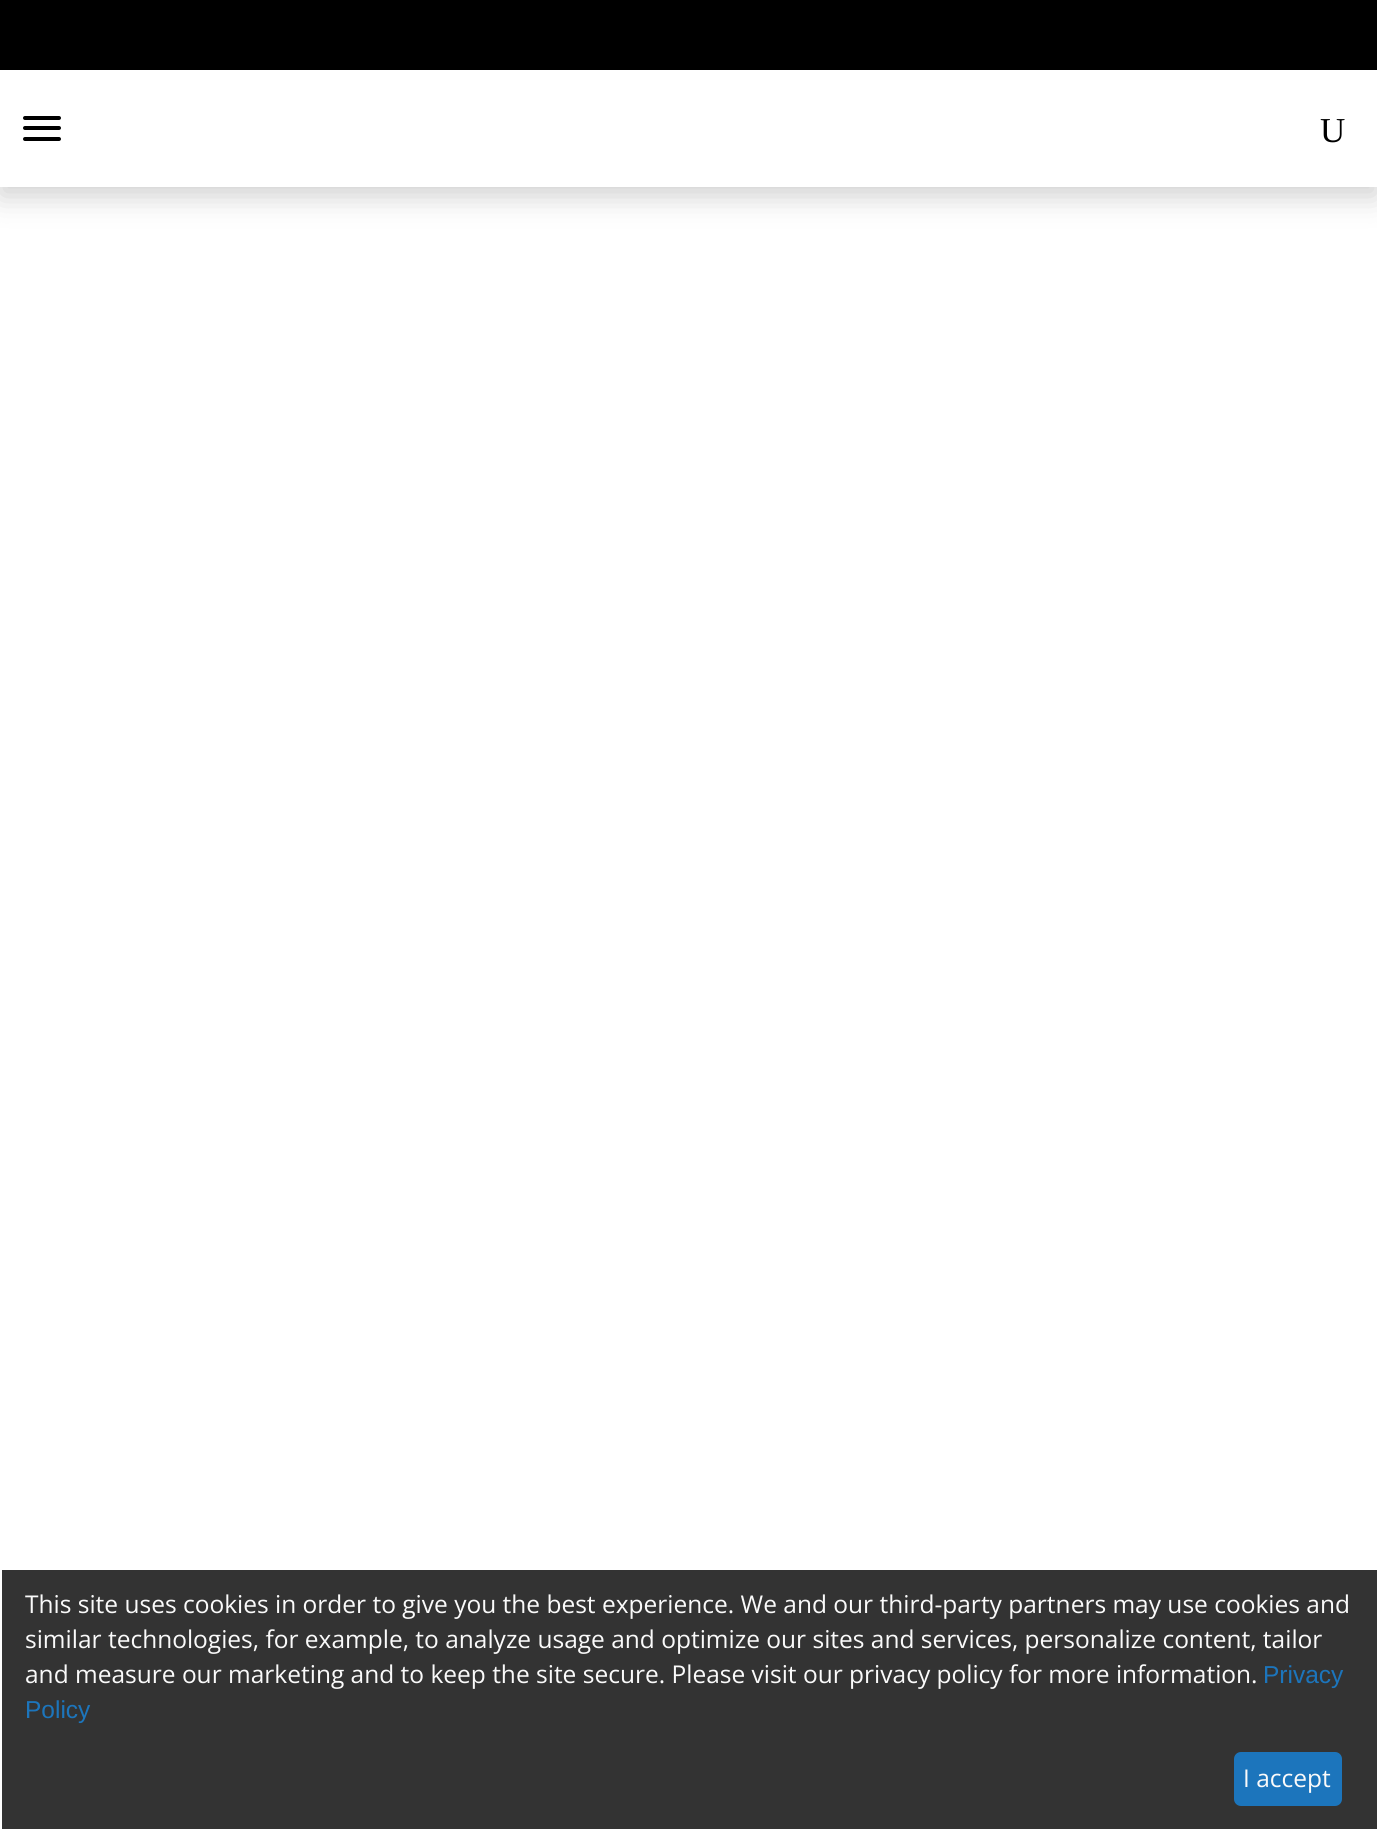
#include <cairo/cairo.h>
#include <math.h>
#include <stddef.h>


static void rounded_rect(cairo_t *cr, double x, double y, double w, double h, double r) {
  cairo_new_sub_path(cr);
  cairo_arc(cr, x + w - r, y + h - r, r, 0, M_PI / 2);
  cairo_arc(cr, x + r, y + h - r, r, M_PI / 2, M_PI);
  cairo_arc(cr, x + r, y + r, r, M_PI, 1.5 * M_PI);
  cairo_arc(cr, x + w - r, y + r, r, 1.5 * M_PI, 2 * M_PI);
  cairo_close_path(cr);
}

static void draw_shadow(cairo_t *cr, double x, double y, double w, double h, double r, double blur, double alpha) {
  cairo_push_group_with_content(cr, CAIRO_CONTENT_ALPHA);
  cairo_set_operator(cr, CAIRO_OPERATOR_SOURCE);
  for (int i = 15; i >= -15 && fmin(w, h) + blur * i / 3 > 0; i -= 2) {
    double e = blur * i / 6;
    cairo_set_source_rgba(cr, 0, 0, 0, alpha * erfc((i - 1) / 8.5) / 2);
    rounded_rect(cr, x - e, y - e, w + 2 * e, h + 2 * e, fmax(0, fmin(r + e + blur * .6, fmin(w, h) / 2 + e)));
    cairo_fill(cr);
  }
  cairo_pattern_t *soft = cairo_pop_group(cr);
  cairo_mask(cr, soft);
  cairo_pattern_destroy(soft);
}

static void draw(cairo_t *cr) {
  cairo_set_source_rgb(cr, 1, 1, 1);
  cairo_paint(cr);
  cairo_set_source_rgb(cr, 0, 0, 0);
  cairo_rectangle(cr, 0, 0, 1377, 70);
  cairo_fill(cr);
  cairo_save(cr);
  cairo_set_fill_rule(cr, CAIRO_FILL_RULE_EVEN_ODD);
  cairo_new_path(cr);
  cairo_move_to(cr, 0, 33);
  cairo_line_to(cr, 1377, 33);
  cairo_line_to(cr, 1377, 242);
  cairo_line_to(cr, 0, 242);
  cairo_close_path(cr);
  cairo_move_to(cr, 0, 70);
  cairo_line_to(cr, 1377, 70);
  cairo_line_to(cr, 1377, 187);
  cairo_line_to(cr, 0, 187);
  cairo_close_path(cr);
  cairo_clip(cr);
  cairo_set_source_rgb(cr, 0, 0, 0);
  draw_shadow(cr, 0, 79, 1377, 117, 0, 15, 0.19);
  cairo_restore(cr);
  rounded_rect(cr, 23, 116, 38, 4, 2);
  cairo_fill(cr);
  rounded_rect(cr, 23, 126, 38, 4, 2);
  cairo_fill(cr);
  rounded_rect(cr, 23, 137, 38, 4, 2);
  cairo_fill(cr);
  cairo_set_source_rgb(cr, 51 / 255.0, 51 / 255.0, 51 / 255.0);
  cairo_rectangle(cr, 2, 1570, 1375, 259);
  cairo_fill(cr);
  cairo_set_source_rgb(cr, 28 / 255.0, 117 / 255.0, 188 / 255.0);
  rounded_rect(cr, 1234, 1752, 108, 54, 7);
  cairo_fill(cr);
  cairo_select_font_face(cr, "Liberation Serif", CAIRO_FONT_SLANT_NORMAL, CAIRO_FONT_WEIGHT_NORMAL);
  cairo_set_font_size(cr, 35);
  cairo_set_source_rgb(cr, 0, 0, 0);
  cairo_move_to(cr, 1320, 142);
  cairo_show_text(cr, "U");
  cairo_select_font_face(cr, "Open Sans", CAIRO_FONT_SLANT_NORMAL, CAIRO_FONT_WEIGHT_NORMAL);
  cairo_set_font_size(cr, 24.5);
  cairo_set_source_rgb(cr, 250 / 255.0, 250 / 255.0, 250 / 255.0);
  cairo_move_to(cr, 25, 1613);
  cairo_show_text(cr, "This site uses cookies in order to give you the best experience. We and our third-party partners may use cookies and");
  cairo_move_to(cr, 25, 1648);
  cairo_show_text(cr, "similar technologies, for example, to analyze usage and optimize our sites and services, personalize content, tailor");
  cairo_move_to(cr, 25, 1683);
  cairo_show_text(cr, "and measure our marketing and to keep the site secure. Please visit our privacy policy for more information.");
  cairo_select_font_face(cr, "Liberation Sans", CAIRO_FONT_SLANT_NORMAL, CAIRO_FONT_WEIGHT_NORMAL);
  cairo_set_source_rgb(cr, 28 / 255.0, 117 / 255.0, 188 / 255.0);
  cairo_move_to(cr, 1263, 1683);
  cairo_show_text(cr, "Privacy");
  cairo_move_to(cr, 25, 1718);
  cairo_show_text(cr, "Policy");
  cairo_select_font_face(cr, "Open Sans", CAIRO_FONT_SLANT_NORMAL, CAIRO_FONT_WEIGHT_NORMAL);
  cairo_set_source_rgb(cr, 250 / 255.0, 250 / 255.0, 250 / 255.0);
  cairo_move_to(cr, 1243, 1787);
  cairo_show_text(cr, "I accept");
}

int main(void) {
  cairo_surface_t *surface = cairo_image_surface_create(CAIRO_FORMAT_RGB24, 1377, 1829);
  cairo_t *cr = cairo_create(surface);
  cairo_font_options_t *options = cairo_font_options_create();
  cairo_font_options_set_hint_metrics(options, CAIRO_HINT_METRICS_OFF);
  cairo_font_options_set_hint_style(options, CAIRO_HINT_STYLE_NONE);
  cairo_set_font_options(cr, options);
  cairo_set_miter_limit(cr, 4);
  draw(cr);
  cairo_surface_write_to_png(surface, "out.png");
  cairo_font_options_destroy(options);
  cairo_destroy(cr);
  cairo_surface_destroy(surface);
  return 0;
}
